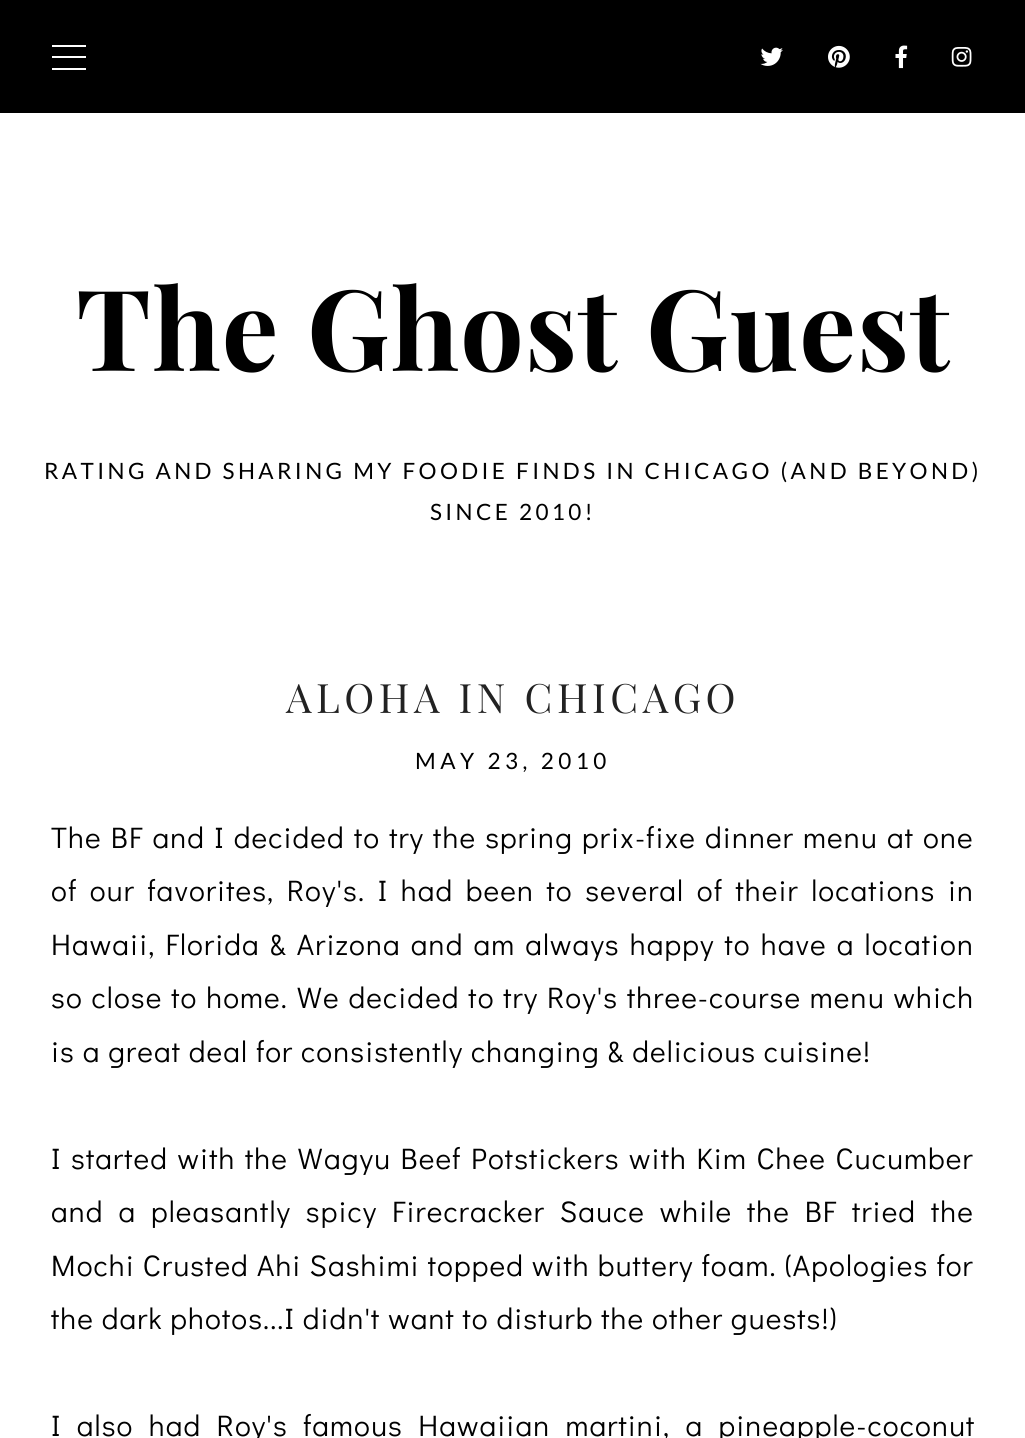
#include <cairo/cairo.h>
#include <math.h>
#include <stddef.h>


static void draw_spaced(cairo_t *cr, double x, double y, const char *s, double letter, double word) {
  cairo_move_to(cr, x, y);
  while (*s) {
    char ch[5] = {0};
    int n = 0;
    do ch[n++] = *s++; while ((*s & 0xC0) == 0x80);
    cairo_show_text(cr, ch);
    cairo_rel_move_to(cr, letter + word * (*ch == ' '), 0);
  }
}

static void draw_image(cairo_t *cr, const char *path, double x, double y, double w, double h) {
  cairo_surface_t *image = cairo_image_surface_create_from_png(path);
  cairo_save(cr);
  cairo_set_source_surface(cr, image, x, y);
  cairo_rectangle(cr, x, y, w, h);
  cairo_fill(cr);
  cairo_restore(cr);
  cairo_surface_destroy(image);
}

static void draw(cairo_t *cr) {
  cairo_set_source_rgb(cr, 1, 1, 1);
  cairo_paint(cr);
  cairo_set_source_rgb(cr, 0, 0, 0);
  cairo_rectangle(cr, 0, 0, 1025, 113);
  cairo_fill(cr);
  cairo_set_source_rgb(cr, 1, 1, 1);
  cairo_rectangle(cr, 52, 56, 34, 2);
  cairo_fill(cr);
  cairo_rectangle(cr, 52, 45, 34, 2);
  cairo_fill(cr);
  cairo_rectangle(cr, 52, 68, 34, 2);
  cairo_fill(cr);
  draw_image(cr, "images/1.png", 760, 47, 23, 19);
  draw_image(cr, "images/2.png", 828, 45, 22, 23);
  draw_image(cr, "images/3.png", 895, 45, 13, 24);
  draw_image(cr, "images/4.png", 951, 47, 21, 20);
  cairo_select_font_face(cr, "Playfair Display", CAIRO_FONT_SLANT_NORMAL, CAIRO_FONT_WEIGHT_BOLD);
  cairo_set_font_size(cr, 112.5);
  cairo_set_source_rgb(cr, 0, 0, 0);
  draw_spaced(cr, 76, 371, "The Ghost Guest", 1.12, 0);
  cairo_select_font_face(cr, "Lato", CAIRO_FONT_SLANT_NORMAL, CAIRO_FONT_WEIGHT_NORMAL);
  cairo_set_font_size(cr, 22.5);
  draw_spaced(cr, 44, 479, "RATING AND SHARING MY FOODIE FINDS IN CHICAGO (AND BEYOND)", 3.38, 0);
  draw_spaced(cr, 430, 520, "SINCE 2010!", 3.38, 0);
  cairo_select_font_face(cr, "Playfair Display", CAIRO_FONT_SLANT_NORMAL, CAIRO_FONT_WEIGHT_NORMAL);
  cairo_set_font_size(cr, 40.5);
  cairo_set_source_rgb(cr, 34 / 255.0, 34 / 255.0, 34 / 255.0);
  draw_spaced(cr, 286, 713, "ALOHA IN CHICAGO", 4.5, 0);
  cairo_select_font_face(cr, "Lato", CAIRO_FONT_SLANT_NORMAL, CAIRO_FONT_WEIGHT_NORMAL);
  cairo_set_font_size(cr, 22.5);
  cairo_set_source_rgb(cr, 0, 0, 0);
  draw_spaced(cr, 415, 769, "MAY 23, 2010", 4.5, 0);
  cairo_select_font_face(cr, "Didact Gothic", CAIRO_FONT_SLANT_NORMAL, CAIRO_FONT_WEIGHT_NORMAL);
  cairo_set_font_size(cr, 29.7);
  draw_spaced(cr, 51, 848, "The BF and I decided to try the spring prix-fixe dinner menu at one", 1.12, 1.3);
  draw_spaced(cr, 51, 901, "of our favorites, Roy's. I had been to several of their locations in", 1.12, 4.75);
  draw_spaced(cr, 51, 955, "Hawaii, Florida & Arizona and am always happy to have a location", 1.12, 2.25);
  draw_spaced(cr, 51, 1008, "so close to home. We decided to try Roy's three-course menu which", 1.12, 1);
  draw_spaced(cr, 51, 1062, "is a great deal for consistently changing & delicious cuisine!", 1.12, 0);
  draw_spaced(cr, 51, 1169, "I started with the Wagyu Beef Potstickers with Kim Chee Cucumber", 1.12, 1.8);
  draw_spaced(cr, 51, 1222, "and a pleasantly spicy Firecracker Sauce while the BF tried the", 1.12, 7);
  draw_spaced(cr, 51, 1276, "Mochi Crusted Ahi Sashimi topped with buttery foam. (Apologies for", 1.12, 0.25);
  draw_spaced(cr, 51, 1329, "the dark photos...I didn't want to disturb the other guests!)", 1.12, 0);
  draw_spaced(cr, 51, 1436, "I also had Roy's famous Hawaiian martini, a pineapple-coconut", 1.12, 7.5);
}

int main(void) {
  cairo_surface_t *surface = cairo_image_surface_create(CAIRO_FORMAT_RGB24, 1025, 1438);
  cairo_t *cr = cairo_create(surface);
  cairo_font_options_t *options = cairo_font_options_create();
  cairo_font_options_set_hint_metrics(options, CAIRO_HINT_METRICS_OFF);
  cairo_font_options_set_hint_style(options, CAIRO_HINT_STYLE_NONE);
  cairo_set_font_options(cr, options);
  cairo_set_miter_limit(cr, 4);
  draw(cr);
  cairo_surface_write_to_png(surface, "out.png");
  cairo_font_options_destroy(options);
  cairo_destroy(cr);
  cairo_surface_destroy(surface);
  return 0;
}
